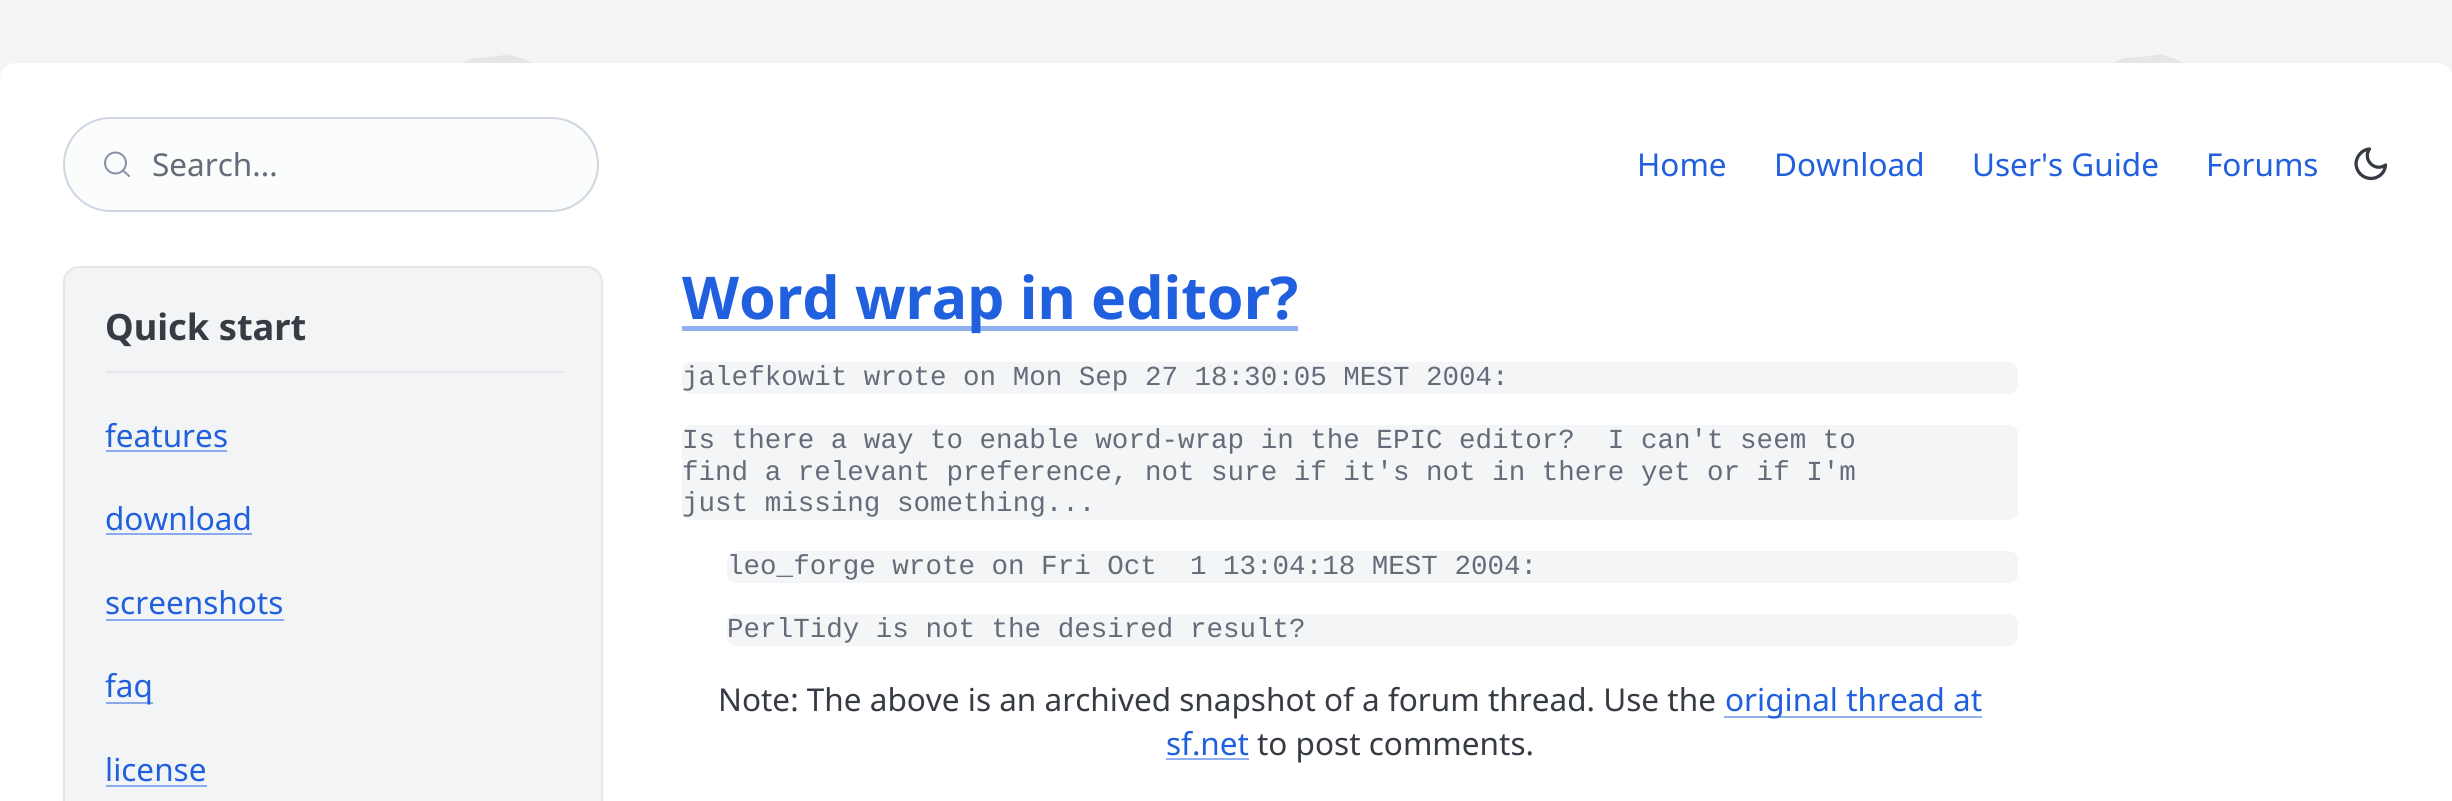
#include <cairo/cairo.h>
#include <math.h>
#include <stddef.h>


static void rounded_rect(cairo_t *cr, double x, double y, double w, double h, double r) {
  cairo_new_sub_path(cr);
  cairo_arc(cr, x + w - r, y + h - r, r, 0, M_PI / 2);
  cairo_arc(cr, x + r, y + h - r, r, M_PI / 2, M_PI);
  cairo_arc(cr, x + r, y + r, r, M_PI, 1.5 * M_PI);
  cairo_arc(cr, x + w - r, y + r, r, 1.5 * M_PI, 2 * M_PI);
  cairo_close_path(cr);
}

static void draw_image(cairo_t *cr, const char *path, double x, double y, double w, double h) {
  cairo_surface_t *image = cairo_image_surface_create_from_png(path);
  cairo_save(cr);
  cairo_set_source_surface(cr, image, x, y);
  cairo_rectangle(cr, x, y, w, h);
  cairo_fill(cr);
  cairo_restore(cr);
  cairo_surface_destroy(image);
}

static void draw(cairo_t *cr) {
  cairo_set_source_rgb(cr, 243 / 255.0, 244 / 255.0, 246 / 255.0);
  cairo_paint(cr);
  draw_image(cr, "images/1.png", 461, 54, 1724, 9);
  cairo_set_source_rgb(cr, 1, 1, 1);
  rounded_rect(cr, 0, 63, 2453, 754, 16);
  cairo_fill(cr);
  cairo_set_source_rgb(cr, 251 / 255.0, 252 / 255.0, 252 / 255.0);
  rounded_rect(cr, 63, 117, 536, 95, 47.5);
  cairo_fill(cr);
  cairo_arc(cr, 115.5, 163, 10.5, 0, 2 * M_PI);
  cairo_set_source_rgb(cr, 136 / 255.0, 145 / 255.0, 164 / 255.0);
  cairo_stroke(cr);
  cairo_new_path(cr);
  cairo_move_to(cr, 129, 176);
  cairo_line_to(cr, 123, 170.5);
  cairo_set_line_cap(cr, CAIRO_LINE_CAP_ROUND);
  cairo_set_line_join(cr, CAIRO_LINE_JOIN_ROUND);
  cairo_stroke(cr);
  rounded_rect(cr, 64, 118, 534, 93, 46.5);
  cairo_set_source_rgb(cr, 207 / 255.0, 213 / 255.0, 226 / 255.0);
  cairo_set_line_cap(cr, CAIRO_LINE_CAP_BUTT);
  cairo_set_line_join(cr, CAIRO_LINE_JOIN_MITER);
  cairo_stroke(cr);
  cairo_new_path(cr);
  cairo_move_to(cr, 2385.5, 165);
  cairo_curve_to(cr, 2385, 173, 2378.5, 178.5, 2370.5, 178.5);
  cairo_curve_to(cr, 2362.5, 178, 2356.5, 172, 2356, 164);
  cairo_curve_to(cr, 2356, 156.5, 2362, 149.5, 2369.5, 149);
  cairo_curve_to(cr, 2362, 159.5, 2375, 172.5, 2385.5, 165);
  cairo_close_path(cr);
  cairo_set_source_rgb(cr, 55 / 255.0, 60 / 255.0, 68 / 255.0);
  cairo_set_line_width(cr, 3.3);
  cairo_set_line_cap(cr, CAIRO_LINE_CAP_ROUND);
  cairo_set_line_join(cr, CAIRO_LINE_JOIN_ROUND);
  cairo_stroke(cr);
  cairo_set_source_rgb(cr, 243 / 255.0, 244 / 255.0, 246 / 255.0);
  rounded_rect(cr, 64, 267, 538, 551, 15);
  cairo_fill_preserve(cr);
  cairo_set_source_rgb(cr, 229 / 255.0, 231 / 255.0, 235 / 255.0);
  cairo_set_line_width(cr, 2);
  cairo_set_line_cap(cr, CAIRO_LINE_CAP_BUTT);
  cairo_set_line_join(cr, CAIRO_LINE_JOIN_MITER);
  cairo_stroke(cr);
  cairo_rectangle(cr, 106, 371, 457, 2);
  cairo_fill(cr);
  cairo_set_source_rgb(cr, 138 / 255.0, 170 / 255.0, 235 / 255.0);
  cairo_rectangle(cr, 106, 450, 121, 2);
  cairo_fill(cr);
  cairo_rectangle(cr, 106, 533, 146, 2);
  cairo_fill(cr);
  cairo_rectangle(cr, 106, 619, 178, 2);
  cairo_fill(cr);
  cairo_rectangle(cr, 106, 702, 47, 2);
  cairo_fill(cr);
  cairo_rectangle(cr, 106, 785, 101, 2);
  cairo_fill(cr);
  cairo_set_source_rgb(cr, 143 / 255.0, 175 / 255.0, 239 / 255.0);
  cairo_rectangle(cr, 682, 326, 616, 5);
  cairo_fill(cr);
  cairo_set_source_rgb(cr, 243 / 255.0, 245 / 255.0, 247 / 255.0);
  rounded_rect(cr, 682, 362, 1336, 32, 9);
  cairo_fill(cr);
  rounded_rect(cr, 682, 425, 1336, 95, 9);
  cairo_fill(cr);
  rounded_rect(cr, 727, 551, 1291, 32, 9);
  cairo_fill(cr);
  rounded_rect(cr, 727, 614, 1291, 32, 9);
  cairo_fill(cr);
  cairo_set_source_rgb(cr, 144 / 255.0, 176 / 255.0, 239 / 255.0);
  cairo_rectangle(cr, 1724, 716, 258, 2);
  cairo_fill(cr);
  cairo_rectangle(cr, 1166, 758, 83, 2);
  cairo_fill(cr);
  cairo_select_font_face(cr, "Noto Sans", CAIRO_FONT_SLANT_NORMAL, CAIRO_FONT_WEIGHT_NORMAL);
  cairo_set_font_size(cr, 31.5);
  cairo_set_source_rgb(cr, 100 / 255.0, 107 / 255.0, 121 / 255.0);
  cairo_move_to(cr, 152, 176);
  cairo_show_text(cr, "Search...");
  cairo_set_source_rgb(cr, 32 / 255.0, 96 / 255.0, 223 / 255.0);
  cairo_move_to(cr, 1637, 176);
  cairo_show_text(cr, "Home");
  cairo_move_to(cr, 1774, 176);
  cairo_show_text(cr, "Download");
  cairo_move_to(cr, 1972, 176);
  cairo_show_text(cr, "User's Guide");
  cairo_move_to(cr, 2206, 176);
  cairo_show_text(cr, "Forums");
  cairo_select_font_face(cr, "Noto Sans", CAIRO_FONT_SLANT_NORMAL, CAIRO_FONT_WEIGHT_BOLD);
  cairo_set_font_size(cr, 36.25);
  cairo_set_source_rgb(cr, 55 / 255.0, 60 / 255.0, 68 / 255.0);
  cairo_move_to(cr, 105, 340);
  cairo_show_text(cr, "Quick start");
  cairo_select_font_face(cr, "Noto Sans", CAIRO_FONT_SLANT_NORMAL, CAIRO_FONT_WEIGHT_NORMAL);
  cairo_set_font_size(cr, 31.5);
  cairo_set_source_rgb(cr, 32 / 255.0, 96 / 255.0, 223 / 255.0);
  cairo_move_to(cr, 105, 447);
  cairo_show_text(cr, "features");
  cairo_move_to(cr, 105, 530);
  cairo_show_text(cr, "download");
  cairo_move_to(cr, 105, 614);
  cairo_show_text(cr, "screenshots");
  cairo_move_to(cr, 105, 697);
  cairo_show_text(cr, "faq");
  cairo_move_to(cr, 105, 781);
  cairo_show_text(cr, "license");
  cairo_select_font_face(cr, "Noto Sans", CAIRO_FONT_SLANT_NORMAL, CAIRO_FONT_WEIGHT_BOLD);
  cairo_set_font_size(cr, 59);
  cairo_move_to(cr, 682, 319);
  cairo_show_text(cr, "Word wrap in editor?");
  cairo_select_font_face(cr, "Liberation Mono", CAIRO_FONT_SLANT_NORMAL, CAIRO_FONT_WEIGHT_NORMAL);
  cairo_set_font_size(cr, 27.55);
  cairo_set_source_rgb(cr, 100 / 255.0, 107 / 255.0, 121 / 255.0);
  cairo_move_to(cr, 682, 385);
  cairo_show_text(cr, "jalefkowit wrote on Mon Sep 27 18:30:05 MEST 2004:");
  cairo_move_to(cr, 682, 448);
  cairo_show_text(cr, "Is there a way to enable word-wrap in the EPIC editor?  I can't seem to");
  cairo_move_to(cr, 682, 480);
  cairo_show_text(cr, "find a relevant preference, not sure if it's not in there yet or if I'm");
  cairo_move_to(cr, 682, 511);
  cairo_show_text(cr, "just missing something...");
  cairo_move_to(cr, 727, 574);
  cairo_show_text(cr, "leo_forge wrote on Fri Oct  1 13:04:18 MEST 2004:");
  cairo_move_to(cr, 727, 637);
  cairo_show_text(cr, "PerlTidy is not the desired result?");
  cairo_select_font_face(cr, "Noto Sans", CAIRO_FONT_SLANT_NORMAL, CAIRO_FONT_WEIGHT_NORMAL);
  cairo_set_font_size(cr, 31.5);
  cairo_set_source_rgb(cr, 55 / 255.0, 60 / 255.0, 68 / 255.0);
  cairo_move_to(cr, 718, 711);
  cairo_show_text(cr, "Note: The above is an archived snapshot of a forum thread. Use the");
  cairo_set_source_rgb(cr, 32 / 255.0, 96 / 255.0, 223 / 255.0);
  cairo_move_to(cr, 1725, 711);
  cairo_show_text(cr, "original thread at");
  cairo_move_to(cr, 1166, 755);
  cairo_show_text(cr, "sf.net");
  cairo_set_source_rgb(cr, 55 / 255.0, 60 / 255.0, 68 / 255.0);
  cairo_move_to(cr, 1257, 755);
  cairo_show_text(cr, "to post comments.");
}

int main(void) {
  cairo_surface_t *surface = cairo_image_surface_create(CAIRO_FORMAT_RGB24, 2452, 801);
  cairo_t *cr = cairo_create(surface);
  cairo_font_options_t *options = cairo_font_options_create();
  cairo_font_options_set_hint_metrics(options, CAIRO_HINT_METRICS_OFF);
  cairo_font_options_set_hint_style(options, CAIRO_HINT_STYLE_NONE);
  cairo_set_font_options(cr, options);
  cairo_set_miter_limit(cr, 4);
  draw(cr);
  cairo_surface_write_to_png(surface, "out.png");
  cairo_font_options_destroy(options);
  cairo_destroy(cr);
  cairo_surface_destroy(surface);
  return 0;
}
